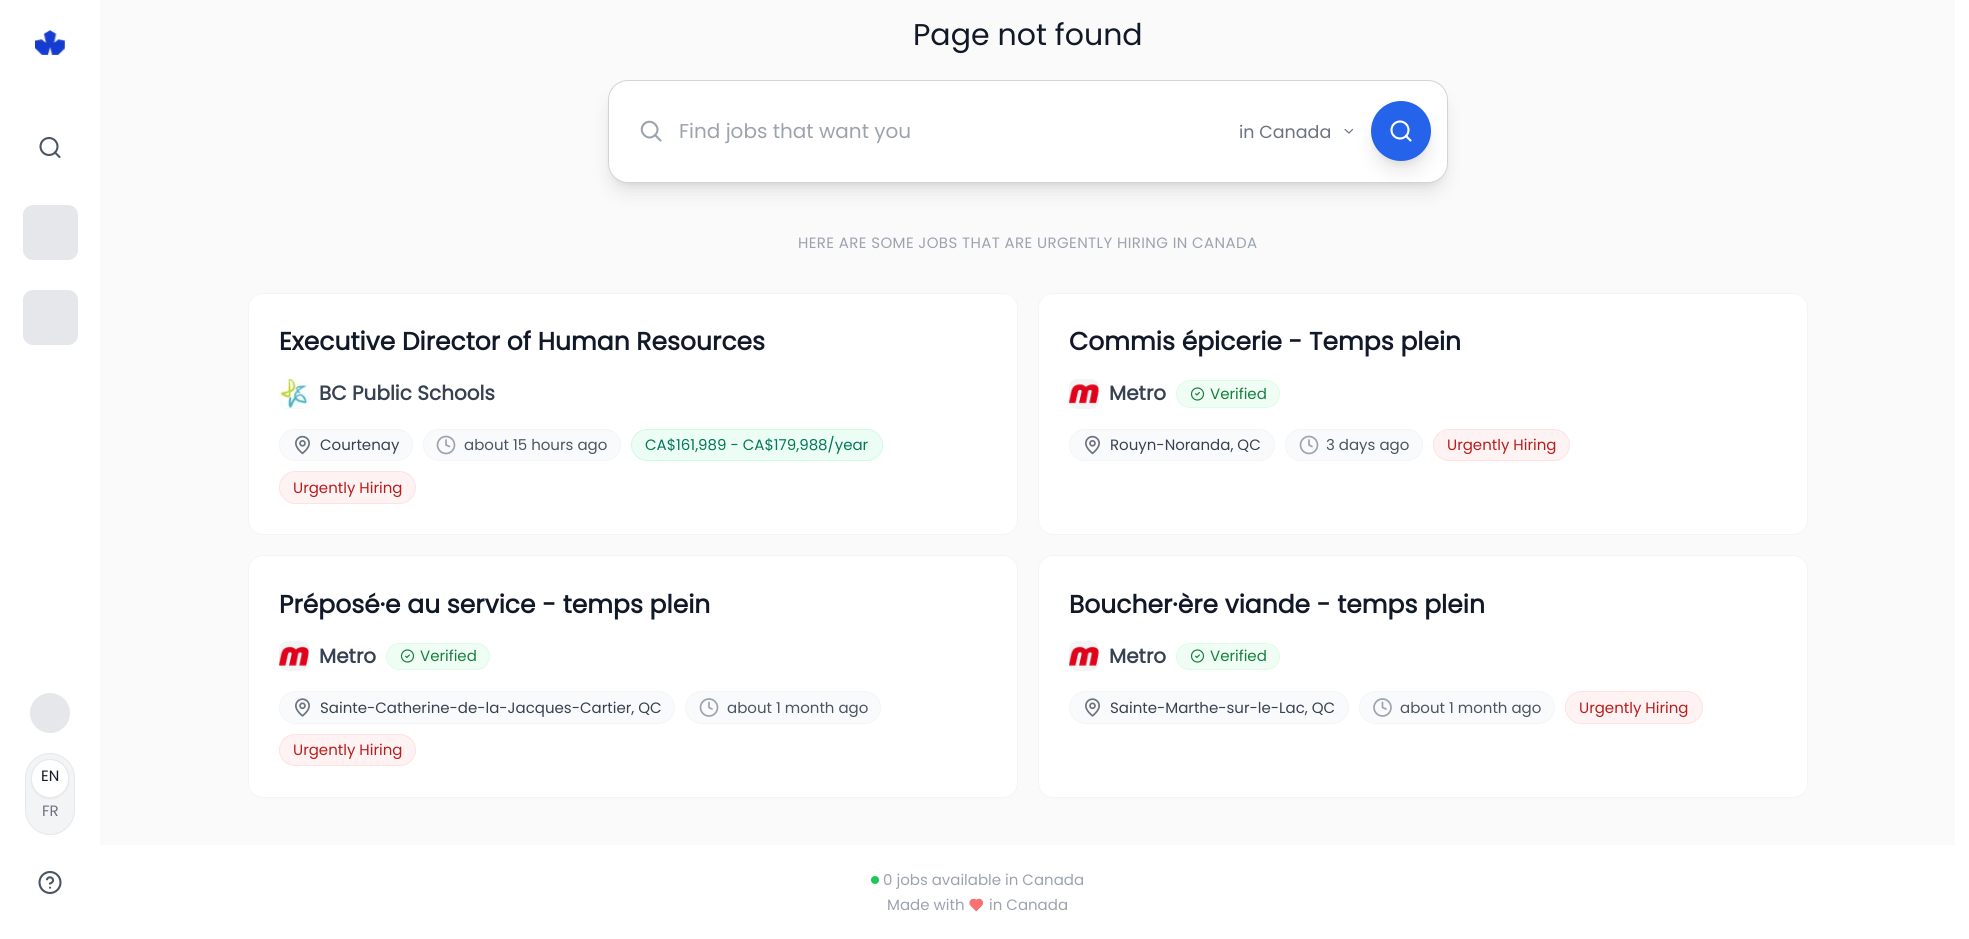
#include <cairo/cairo.h>
#include <math.h>
#include <stddef.h>


static void draw_spaced(cairo_t *cr, double x, double y, const char *s, double letter, double word) {
  cairo_move_to(cr, x, y);
  while (*s) {
    char ch[5] = {0};
    int n = 0;
    do ch[n++] = *s++; while ((*s & 0xC0) == 0x80);
    cairo_show_text(cr, ch);
    cairo_rel_move_to(cr, letter + word * (*ch == ' '), 0);
  }
}

static void rounded_rect(cairo_t *cr, double x, double y, double w, double h, double r) {
  cairo_new_sub_path(cr);
  cairo_arc(cr, x + w - r, y + h - r, r, 0, M_PI / 2);
  cairo_arc(cr, x + r, y + h - r, r, M_PI / 2, M_PI);
  cairo_arc(cr, x + r, y + r, r, M_PI, 1.5 * M_PI);
  cairo_arc(cr, x + w - r, y + r, r, 1.5 * M_PI, 2 * M_PI);
  cairo_close_path(cr);
}

static void draw_shadow(cairo_t *cr, double x, double y, double w, double h, double r, double blur, double alpha) {
  cairo_push_group_with_content(cr, CAIRO_CONTENT_ALPHA);
  cairo_set_operator(cr, CAIRO_OPERATOR_SOURCE);
  for (int i = 15; i >= -15 && fmin(w, h) + blur * i / 3 > 0; i -= 2) {
    double e = blur * i / 6;
    cairo_set_source_rgba(cr, 0, 0, 0, alpha * erfc((i - 1) / 8.5) / 2);
    rounded_rect(cr, x - e, y - e, w + 2 * e, h + 2 * e, fmax(0, fmin(r + e + blur * .6, fmin(w, h) / 2 + e)));
    cairo_fill(cr);
  }
  cairo_pattern_t *soft = cairo_pop_group(cr);
  cairo_mask(cr, soft);
  cairo_pattern_destroy(soft);
}

static void draw_image(cairo_t *cr, const char *path, double x, double y, double w, double h) {
  cairo_surface_t *image = cairo_image_surface_create_from_png(path);
  cairo_save(cr);
  cairo_set_source_surface(cr, image, x, y);
  cairo_rectangle(cr, x, y, w, h);
  cairo_fill(cr);
  cairo_restore(cr);
  cairo_surface_destroy(image);
}

static void draw(cairo_t *cr) {
  cairo_set_source_rgb(cr, 1, 1, 1);
  cairo_paint(cr);
  draw_image(cr, "images/1.png", 35, 30, 30, 25);
  cairo_arc(cr, 49, 146.5, 8.5, 0, 2 * M_PI);
  cairo_set_source_rgb(cr, 75 / 255.0, 85 / 255.0, 99 / 255.0);
  cairo_set_line_width(cr, 2.1);
  cairo_stroke(cr);
  cairo_new_path(cr);
  cairo_move_to(cr, 59.5, 157);
  cairo_line_to(cr, 55, 152.5);
  cairo_set_line_cap(cr, CAIRO_LINE_CAP_ROUND);
  cairo_set_line_join(cr, CAIRO_LINE_JOIN_ROUND);
  cairo_stroke(cr);
  cairo_set_source_rgb(cr, 229 / 255.0, 231 / 255.0, 235 / 255.0);
  rounded_rect(cr, 23, 205, 55, 55, 10);
  cairo_fill(cr);
  rounded_rect(cr, 23, 290, 55, 55, 10);
  cairo_fill(cr);
  cairo_arc(cr, 50, 713, 20, 0, 2 * M_PI);
  cairo_fill(cr);
  cairo_set_source_rgb(cr, 243 / 255.0, 244 / 255.0, 246 / 255.0);
  rounded_rect(cr, 25.5, 753.5, 49, 81, 24.5);
  cairo_fill_preserve(cr);
  cairo_set_source_rgb(cr, 229 / 255.0, 231 / 255.0, 235 / 255.0);
  cairo_set_line_width(cr, 1);
  cairo_set_line_cap(cr, CAIRO_LINE_CAP_BUTT);
  cairo_set_line_join(cr, CAIRO_LINE_JOIN_MITER);
  cairo_stroke(cr);
  cairo_set_source_rgb(cr, 0, 0, 0);
  draw_shadow(cr, 31, 760, 38, 39, 19, 1, 0.05);
  cairo_set_source_rgb(cr, 1, 1, 1);
  rounded_rect(cr, 31.5, 759.5, 37, 38, 18.5);
  cairo_fill_preserve(cr);
  cairo_set_source_rgb(cr, 229 / 255.0, 231 / 255.0, 235 / 255.0);
  cairo_stroke(cr);
  draw_image(cr, "images/2.png", 38, 871, 24, 23);
  cairo_set_source_rgb(cr, 250 / 255.0, 250 / 255.0, 250 / 255.0);
  cairo_rectangle(cr, 100, 0, 1855, 845);
  cairo_fill(cr);
  cairo_set_source_rgb(cr, 0, 0, 0);
  draw_shadow(cr, 613, 90, 830, 93, 15, 4, 0.1);
  draw_shadow(cr, 611, 96, 833, 95, 16, 9.5, 0.1);
  cairo_set_source_rgb(cr, 1, 1, 1);
  rounded_rect(cr, 608.5, 80.5, 839, 102, 19.5);
  cairo_fill_preserve(cr);
  cairo_set_source_rgb(cr, 209 / 255.0, 213 / 255.0, 219 / 255.0);
  cairo_stroke(cr);
  cairo_new_path(cr);
  cairo_move_to(cr, 660.5, 140.5);
  cairo_line_to(cr, 655, 135);
  cairo_move_to(cr, 655, 135);
  cairo_curve_to(cr, 662.5, 128, 651.5, 117, 644, 124);
  cairo_curve_to(cr, 637, 131.5, 648, 142.5, 655, 135);
  cairo_close_path(cr);
  cairo_set_source_rgb(cr, 156 / 255.0, 163 / 255.0, 175 / 255.0);
  cairo_set_line_width(cr, 2.1);
  cairo_set_line_cap(cr, CAIRO_LINE_CAP_ROUND);
  cairo_set_line_join(cr, CAIRO_LINE_JOIN_ROUND);
  cairo_stroke(cr);
  cairo_set_source_rgb(cr, 0, 0, 0);
  draw_shadow(cr, 1375, 118, 53, 52, 26, 9.5, 0.1);
  cairo_new_path(cr);
  cairo_move_to(cr, 1345, 129.5);
  cairo_line_to(cr, 1349, 133);
  cairo_line_to(cr, 1352.5, 129.5);
  cairo_set_source_rgb(cr, 107 / 255.0, 114 / 255.0, 128 / 255.0);
  cairo_set_line_width(cr, 1.2);
  cairo_stroke(cr);
  cairo_set_source_rgb(cr, 0, 0, 0);
  draw_shadow(cr, 1376, 111, 50, 50, 25, 4, 0.1);
  cairo_set_source_rgb(cr, 37 / 255.0, 99 / 255.0, 235 / 255.0);
  cairo_arc(cr, 1401, 131, 30, 0, 2 * M_PI);
  cairo_fill(cr);
  cairo_arc(cr, 1400, 130, 8.5, 0, 2 * M_PI);
  cairo_set_source_rgb(cr, 1, 1, 1);
  cairo_set_line_width(cr, 2.1);
  cairo_set_line_cap(cr, CAIRO_LINE_CAP_BUTT);
  cairo_set_line_join(cr, CAIRO_LINE_JOIN_MITER);
  cairo_stroke(cr);
  cairo_new_path(cr);
  cairo_move_to(cr, 1410.5, 140.5);
  cairo_line_to(cr, 1406, 136);
  cairo_set_line_cap(cr, CAIRO_LINE_CAP_ROUND);
  cairo_set_line_join(cr, CAIRO_LINE_JOIN_ROUND);
  cairo_stroke(cr);
  rounded_rect(cr, 248.5, 293.5, 769, 241, 14.5);
  cairo_fill_preserve(cr);
  cairo_set_source_rgb(cr, 243 / 255.0, 244 / 255.0, 246 / 255.0);
  cairo_set_line_width(cr, 1);
  cairo_set_line_cap(cr, CAIRO_LINE_CAP_BUTT);
  cairo_set_line_join(cr, CAIRO_LINE_JOIN_MITER);
  cairo_stroke(cr);
  rounded_rect(cr, 279, 379, 30, 30, 8);
  cairo_fill(cr);
  draw_image(cr, "images/3.png", 279, 378, 30, 31);
  cairo_set_source_rgb(cr, 249 / 255.0, 250 / 255.0, 251 / 255.0);
  rounded_rect(cr, 279.5, 429.5, 133, 31, 15.5);
  cairo_fill_preserve(cr);
  cairo_set_source_rgb(cr, 243 / 255.0, 244 / 255.0, 246 / 255.0);
  cairo_stroke(cr);
  draw_image(cr, "images/4.png", 295, 435, 15, 20);
  cairo_set_source_rgb(cr, 249 / 255.0, 250 / 255.0, 251 / 255.0);
  rounded_rect(cr, 423.5, 429.5, 197, 31, 15.5);
  cairo_fill_preserve(cr);
  cairo_set_source_rgb(cr, 243 / 255.0, 244 / 255.0, 246 / 255.0);
  cairo_stroke(cr);
  cairo_arc(cr, 446, 445, 8.5, 0, 2 * M_PI);
  cairo_set_source_rgb(cr, 156 / 255.0, 163 / 255.0, 175 / 255.0);
  cairo_set_line_width(cr, 1.7);
  cairo_stroke(cr);
  cairo_new_path(cr);
  cairo_move_to(cr, 446, 440);
  cairo_line_to(cr, 446, 445);
  cairo_line_to(cr, 449.5, 446.5);
  cairo_set_line_cap(cr, CAIRO_LINE_CAP_ROUND);
  cairo_set_line_join(cr, CAIRO_LINE_JOIN_ROUND);
  cairo_stroke(cr);
  cairo_set_source_rgb(cr, 236 / 255.0, 253 / 255.0, 245 / 255.0);
  rounded_rect(cr, 631.5, 429.5, 251, 31, 15.5);
  cairo_fill_preserve(cr);
  cairo_set_source_rgb(cr, 209 / 255.0, 250 / 255.0, 229 / 255.0);
  cairo_set_line_width(cr, 1);
  cairo_set_line_cap(cr, CAIRO_LINE_CAP_BUTT);
  cairo_set_line_join(cr, CAIRO_LINE_JOIN_MITER);
  cairo_stroke(cr);
  cairo_set_source_rgb(cr, 254 / 255.0, 242 / 255.0, 242 / 255.0);
  rounded_rect(cr, 279.5, 471.5, 136, 32, 16);
  cairo_fill_preserve(cr);
  cairo_set_source_rgb(cr, 254 / 255.0, 226 / 255.0, 226 / 255.0);
  cairo_stroke(cr);
  cairo_set_source_rgb(cr, 1, 1, 1);
  rounded_rect(cr, 1038.5, 293.5, 769, 241, 14.5);
  cairo_fill_preserve(cr);
  cairo_set_source_rgb(cr, 243 / 255.0, 244 / 255.0, 246 / 255.0);
  cairo_stroke(cr);
  rounded_rect(cr, 1069, 379, 30, 30, 8);
  cairo_fill(cr);
  draw_image(cr, "images/5.png", 1068, 384, 31, 20);
  cairo_set_source_rgb(cr, 240 / 255.0, 253 / 255.0, 244 / 255.0);
  rounded_rect(cr, 1176.5, 380.5, 103, 27, 13.5);
  cairo_fill_preserve(cr);
  cairo_set_source_rgb(cr, 220 / 255.0, 252 / 255.0, 231 / 255.0);
  cairo_stroke(cr);
  draw_image(cr, "images/6.png", 1190, 387, 15, 14);
  cairo_set_source_rgb(cr, 249 / 255.0, 250 / 255.0, 251 / 255.0);
  rounded_rect(cr, 1069.5, 429.5, 205, 31, 15.5);
  cairo_fill_preserve(cr);
  cairo_set_source_rgb(cr, 243 / 255.0, 244 / 255.0, 246 / 255.0);
  cairo_stroke(cr);
  draw_image(cr, "images/4.png", 1085, 435, 15, 20);
  cairo_set_source_rgb(cr, 249 / 255.0, 250 / 255.0, 251 / 255.0);
  rounded_rect(cr, 1285.5, 429.5, 137, 31, 15.5);
  cairo_fill_preserve(cr);
  cairo_set_source_rgb(cr, 243 / 255.0, 244 / 255.0, 246 / 255.0);
  cairo_stroke(cr);
  cairo_arc(cr, 1309, 445, 8.5, 0, 2 * M_PI);
  cairo_set_source_rgb(cr, 156 / 255.0, 163 / 255.0, 175 / 255.0);
  cairo_set_line_width(cr, 1.7);
  cairo_stroke(cr);
  cairo_new_path(cr);
  cairo_move_to(cr, 1309, 440);
  cairo_line_to(cr, 1309, 445);
  cairo_line_to(cr, 1312, 446.5);
  cairo_set_line_cap(cr, CAIRO_LINE_CAP_ROUND);
  cairo_set_line_join(cr, CAIRO_LINE_JOIN_ROUND);
  cairo_stroke(cr);
  cairo_set_source_rgb(cr, 254 / 255.0, 242 / 255.0, 242 / 255.0);
  rounded_rect(cr, 1433.5, 429.5, 136, 31, 15.5);
  cairo_fill_preserve(cr);
  cairo_set_source_rgb(cr, 254 / 255.0, 226 / 255.0, 226 / 255.0);
  cairo_set_line_width(cr, 1);
  cairo_set_line_cap(cr, CAIRO_LINE_CAP_BUTT);
  cairo_set_line_join(cr, CAIRO_LINE_JOIN_MITER);
  cairo_stroke(cr);
  cairo_set_source_rgb(cr, 1, 1, 1);
  rounded_rect(cr, 248.5, 555.5, 769, 242, 14.5);
  cairo_fill_preserve(cr);
  cairo_set_source_rgb(cr, 243 / 255.0, 244 / 255.0, 246 / 255.0);
  cairo_stroke(cr);
  rounded_rect(cr, 279, 641, 30, 30, 8);
  cairo_fill(cr);
  draw_image(cr, "images/7.png", 278, 646, 31, 20);
  cairo_set_source_rgb(cr, 240 / 255.0, 253 / 255.0, 244 / 255.0);
  rounded_rect(cr, 386.5, 643.5, 103, 26, 13);
  cairo_fill_preserve(cr);
  cairo_set_source_rgb(cr, 220 / 255.0, 252 / 255.0, 231 / 255.0);
  cairo_stroke(cr);
  draw_image(cr, "images/8.png", 400, 649, 15, 14);
  cairo_set_source_rgb(cr, 249 / 255.0, 250 / 255.0, 251 / 255.0);
  rounded_rect(cr, 279.5, 691.5, 395, 32, 16);
  cairo_fill_preserve(cr);
  cairo_set_source_rgb(cr, 243 / 255.0, 244 / 255.0, 246 / 255.0);
  cairo_stroke(cr);
  draw_image(cr, "images/9.png", 295, 698, 15, 19);
  cairo_set_source_rgb(cr, 249 / 255.0, 250 / 255.0, 251 / 255.0);
  rounded_rect(cr, 685.5, 691.5, 195, 32, 16);
  cairo_fill_preserve(cr);
  cairo_set_source_rgb(cr, 243 / 255.0, 244 / 255.0, 246 / 255.0);
  cairo_stroke(cr);
  cairo_arc(cr, 709, 707.5, 8.5, 0, 2 * M_PI);
  cairo_set_source_rgb(cr, 156 / 255.0, 163 / 255.0, 175 / 255.0);
  cairo_set_line_width(cr, 1.7);
  cairo_stroke(cr);
  cairo_new_path(cr);
  cairo_move_to(cr, 709, 702.5);
  cairo_line_to(cr, 709, 707.5);
  cairo_line_to(cr, 712, 709);
  cairo_set_line_cap(cr, CAIRO_LINE_CAP_ROUND);
  cairo_set_line_join(cr, CAIRO_LINE_JOIN_ROUND);
  cairo_stroke(cr);
  cairo_set_source_rgb(cr, 254 / 255.0, 242 / 255.0, 242 / 255.0);
  rounded_rect(cr, 279.5, 734.5, 136, 31, 15.5);
  cairo_fill_preserve(cr);
  cairo_set_source_rgb(cr, 254 / 255.0, 226 / 255.0, 226 / 255.0);
  cairo_set_line_width(cr, 1);
  cairo_set_line_cap(cr, CAIRO_LINE_CAP_BUTT);
  cairo_set_line_join(cr, CAIRO_LINE_JOIN_MITER);
  cairo_stroke(cr);
  cairo_set_source_rgb(cr, 1, 1, 1);
  rounded_rect(cr, 1038.5, 555.5, 769, 242, 14.5);
  cairo_fill_preserve(cr);
  cairo_set_source_rgb(cr, 243 / 255.0, 244 / 255.0, 246 / 255.0);
  cairo_stroke(cr);
  rounded_rect(cr, 1069, 641, 30, 30, 8);
  cairo_fill(cr);
  draw_image(cr, "images/10.png", 1068, 646, 31, 20);
  cairo_set_source_rgb(cr, 240 / 255.0, 253 / 255.0, 244 / 255.0);
  rounded_rect(cr, 1176.5, 643.5, 103, 26, 13);
  cairo_fill_preserve(cr);
  cairo_set_source_rgb(cr, 220 / 255.0, 252 / 255.0, 231 / 255.0);
  cairo_stroke(cr);
  draw_image(cr, "images/8.png", 1190, 649, 15, 14);
  cairo_set_source_rgb(cr, 249 / 255.0, 250 / 255.0, 251 / 255.0);
  rounded_rect(cr, 1069.5, 691.5, 279, 32, 16);
  cairo_fill_preserve(cr);
  cairo_set_source_rgb(cr, 243 / 255.0, 244 / 255.0, 246 / 255.0);
  cairo_stroke(cr);
  draw_image(cr, "images/9.png", 1085, 698, 15, 19);
  cairo_set_source_rgb(cr, 249 / 255.0, 250 / 255.0, 251 / 255.0);
  rounded_rect(cr, 1359.5, 691.5, 195, 32, 16);
  cairo_fill_preserve(cr);
  cairo_set_source_rgb(cr, 243 / 255.0, 244 / 255.0, 246 / 255.0);
  cairo_stroke(cr);
  cairo_arc(cr, 1382.5, 707.5, 8.5, 0, 2 * M_PI);
  cairo_set_source_rgb(cr, 156 / 255.0, 163 / 255.0, 175 / 255.0);
  cairo_set_line_width(cr, 1.7);
  cairo_stroke(cr);
  cairo_new_path(cr);
  cairo_move_to(cr, 1382.5, 702.5);
  cairo_line_to(cr, 1382.5, 707.5);
  cairo_line_to(cr, 1386, 709);
  cairo_set_line_cap(cr, CAIRO_LINE_CAP_ROUND);
  cairo_set_line_join(cr, CAIRO_LINE_JOIN_ROUND);
  cairo_stroke(cr);
  cairo_set_source_rgb(cr, 254 / 255.0, 242 / 255.0, 242 / 255.0);
  rounded_rect(cr, 1565.5, 691.5, 137, 32, 16);
  cairo_fill_preserve(cr);
  cairo_set_source_rgb(cr, 254 / 255.0, 226 / 255.0, 226 / 255.0);
  cairo_set_line_width(cr, 1);
  cairo_set_line_cap(cr, CAIRO_LINE_CAP_BUTT);
  cairo_set_line_join(cr, CAIRO_LINE_JOIN_MITER);
  cairo_stroke(cr);
  cairo_set_source_rgb(cr, 34 / 255.0, 197 / 255.0, 94 / 255.0);
  cairo_arc(cr, 875, 880, 4, 0, 2 * M_PI);
  cairo_fill(cr);
  draw_image(cr, "images/11.png", 969, 898, 15, 14);
  cairo_select_font_face(cr, "Poppins", CAIRO_FONT_SLANT_NORMAL, CAIRO_FONT_WEIGHT_NORMAL);
  cairo_set_font_size(cr, 15);
  cairo_set_source_rgb(cr, 17 / 255.0, 24 / 255.0, 39 / 255.0);
  cairo_move_to(cr, 41, 781);
  cairo_show_text(cr, "EN");
  cairo_set_source_rgb(cr, 107 / 255.0, 114 / 255.0, 128 / 255.0);
  cairo_move_to(cr, 42, 816);
  cairo_show_text(cr, "FR");
  cairo_set_font_size(cr, 30);
  cairo_set_source_rgb(cr, 17 / 255.0, 24 / 255.0, 39 / 255.0);
  cairo_move_to(cr, 913, 45);
  cairo_show_text(cr, "Page not found");
  cairo_set_font_size(cr, 20);
  cairo_set_source_rgb(cr, 156 / 255.0, 163 / 255.0, 175 / 255.0);
  cairo_move_to(cr, 679, 138);
  cairo_show_text(cr, "Find jobs that want you");
  cairo_set_font_size(cr, 17.5);
  cairo_set_source_rgb(cr, 107 / 255.0, 114 / 255.0, 128 / 255.0);
  cairo_move_to(cr, 1239, 138);
  cairo_show_text(cr, "in Canada");
  cairo_set_font_size(cr, 15);
  cairo_set_source_rgb(cr, 156 / 255.0, 163 / 255.0, 175 / 255.0);
  draw_spaced(cr, 798, 248, "HERE ARE SOME JOBS THAT ARE URGENTLY HIRING IN CANADA", 0.38, 0);
  cairo_select_font_face(cr, "Poppins", CAIRO_FONT_SLANT_NORMAL, CAIRO_FONT_WEIGHT_BOLD);
  cairo_set_font_size(cr, 25);
  cairo_set_source_rgb(cr, 17 / 255.0, 24 / 255.0, 39 / 255.0);
  cairo_move_to(cr, 279, 350);
  cairo_show_text(cr, "Executive Director of Human Resources");
  cairo_set_font_size(cr, 20);
  cairo_set_source_rgb(cr, 55 / 255.0, 65 / 255.0, 81 / 255.0);
  cairo_move_to(cr, 319, 400);
  cairo_show_text(cr, "BC Public Schools");
  cairo_select_font_face(cr, "Poppins", CAIRO_FONT_SLANT_NORMAL, CAIRO_FONT_WEIGHT_NORMAL);
  cairo_set_font_size(cr, 15);
  cairo_move_to(cr, 320, 450);
  cairo_show_text(cr, "Courtenay");
  cairo_set_source_rgb(cr, 75 / 255.0, 85 / 255.0, 99 / 255.0);
  cairo_move_to(cr, 464, 450);
  cairo_show_text(cr, "about 15 hours ago");
  cairo_set_source_rgb(cr, 4 / 255.0, 120 / 255.0, 87 / 255.0);
  cairo_move_to(cr, 645, 450);
  cairo_show_text(cr, "CA$161,989 - CA$179,988/year");
  cairo_set_source_rgb(cr, 185 / 255.0, 28 / 255.0, 28 / 255.0);
  cairo_move_to(cr, 293, 493);
  cairo_show_text(cr, "Urgently Hiring");
  cairo_select_font_face(cr, "Poppins", CAIRO_FONT_SLANT_NORMAL, CAIRO_FONT_WEIGHT_BOLD);
  cairo_set_font_size(cr, 25);
  cairo_set_source_rgb(cr, 17 / 255.0, 24 / 255.0, 39 / 255.0);
  cairo_move_to(cr, 1069, 350);
  cairo_show_text(cr, "Commis épicerie - Temps plein");
  cairo_set_font_size(cr, 20);
  cairo_set_source_rgb(cr, 55 / 255.0, 65 / 255.0, 81 / 255.0);
  cairo_move_to(cr, 1109, 400);
  cairo_show_text(cr, "Metro");
  cairo_select_font_face(cr, "Poppins", CAIRO_FONT_SLANT_NORMAL, CAIRO_FONT_WEIGHT_NORMAL);
  cairo_set_font_size(cr, 15);
  cairo_set_source_rgb(cr, 21 / 255.0, 128 / 255.0, 61 / 255.0);
  cairo_move_to(cr, 1210, 399);
  cairo_show_text(cr, "Verified");
  cairo_set_source_rgb(cr, 55 / 255.0, 65 / 255.0, 81 / 255.0);
  cairo_move_to(cr, 1110, 450);
  cairo_show_text(cr, "Rouyn-Noranda, QC");
  cairo_set_source_rgb(cr, 75 / 255.0, 85 / 255.0, 99 / 255.0);
  cairo_move_to(cr, 1326, 450);
  cairo_show_text(cr, "3 days ago");
  cairo_set_source_rgb(cr, 185 / 255.0, 28 / 255.0, 28 / 255.0);
  cairo_move_to(cr, 1447, 450);
  cairo_show_text(cr, "Urgently Hiring");
  cairo_select_font_face(cr, "Poppins", CAIRO_FONT_SLANT_NORMAL, CAIRO_FONT_WEIGHT_BOLD);
  cairo_set_font_size(cr, 25);
  cairo_set_source_rgb(cr, 17 / 255.0, 24 / 255.0, 39 / 255.0);
  cairo_move_to(cr, 279, 613);
  cairo_show_text(cr, "Préposé·e au service - temps plein");
  cairo_set_font_size(cr, 20);
  cairo_set_source_rgb(cr, 55 / 255.0, 65 / 255.0, 81 / 255.0);
  cairo_move_to(cr, 319, 663);
  cairo_show_text(cr, "Metro");
  cairo_select_font_face(cr, "Poppins", CAIRO_FONT_SLANT_NORMAL, CAIRO_FONT_WEIGHT_NORMAL);
  cairo_set_font_size(cr, 15);
  cairo_set_source_rgb(cr, 21 / 255.0, 128 / 255.0, 61 / 255.0);
  cairo_move_to(cr, 420, 661);
  cairo_show_text(cr, "Verified");
  cairo_set_source_rgb(cr, 55 / 255.0, 65 / 255.0, 81 / 255.0);
  cairo_move_to(cr, 320, 713);
  cairo_show_text(cr, "Sainte-Catherine-de-la-Jacques-Cartier, QC");
  cairo_set_source_rgb(cr, 75 / 255.0, 85 / 255.0, 99 / 255.0);
  cairo_move_to(cr, 727, 713);
  cairo_show_text(cr, "about 1 month ago");
  cairo_set_source_rgb(cr, 185 / 255.0, 28 / 255.0, 28 / 255.0);
  cairo_move_to(cr, 293, 755);
  cairo_show_text(cr, "Urgently Hiring");
  cairo_select_font_face(cr, "Poppins", CAIRO_FONT_SLANT_NORMAL, CAIRO_FONT_WEIGHT_BOLD);
  cairo_set_font_size(cr, 25);
  cairo_set_source_rgb(cr, 17 / 255.0, 24 / 255.0, 39 / 255.0);
  cairo_move_to(cr, 1069, 613);
  cairo_show_text(cr, "Boucher·ère viande - temps plein");
  cairo_set_font_size(cr, 20);
  cairo_set_source_rgb(cr, 55 / 255.0, 65 / 255.0, 81 / 255.0);
  cairo_move_to(cr, 1109, 663);
  cairo_show_text(cr, "Metro");
  cairo_select_font_face(cr, "Poppins", CAIRO_FONT_SLANT_NORMAL, CAIRO_FONT_WEIGHT_NORMAL);
  cairo_set_font_size(cr, 15);
  cairo_set_source_rgb(cr, 21 / 255.0, 128 / 255.0, 61 / 255.0);
  cairo_move_to(cr, 1210, 661);
  cairo_show_text(cr, "Verified");
  cairo_set_source_rgb(cr, 55 / 255.0, 65 / 255.0, 81 / 255.0);
  cairo_move_to(cr, 1110, 713);
  cairo_show_text(cr, "Sainte-Marthe-sur-le-Lac, QC");
  cairo_set_source_rgb(cr, 75 / 255.0, 85 / 255.0, 99 / 255.0);
  cairo_move_to(cr, 1400, 713);
  cairo_show_text(cr, "about 1 month ago");
  cairo_set_source_rgb(cr, 185 / 255.0, 28 / 255.0, 28 / 255.0);
  cairo_move_to(cr, 1579, 713);
  cairo_show_text(cr, "Urgently Hiring");
  cairo_set_source_rgb(cr, 156 / 255.0, 163 / 255.0, 175 / 255.0);
  cairo_move_to(cr, 883, 885);
  cairo_show_text(cr, "0 jobs available in Canada");
  cairo_move_to(cr, 887, 910);
  cairo_show_text(cr, "Made with");
  cairo_move_to(cr, 989, 910);
  cairo_show_text(cr, "in Canada");
}

int main(void) {
  cairo_surface_t *surface = cairo_image_surface_create(CAIRO_FORMAT_RGB24, 1969, 939);
  cairo_t *cr = cairo_create(surface);
  cairo_font_options_t *options = cairo_font_options_create();
  cairo_font_options_set_hint_metrics(options, CAIRO_HINT_METRICS_OFF);
  cairo_font_options_set_hint_style(options, CAIRO_HINT_STYLE_NONE);
  cairo_set_font_options(cr, options);
  cairo_set_miter_limit(cr, 4);
  draw(cr);
  cairo_surface_write_to_png(surface, "out.png");
  cairo_font_options_destroy(options);
  cairo_destroy(cr);
  cairo_surface_destroy(surface);
  return 0;
}
